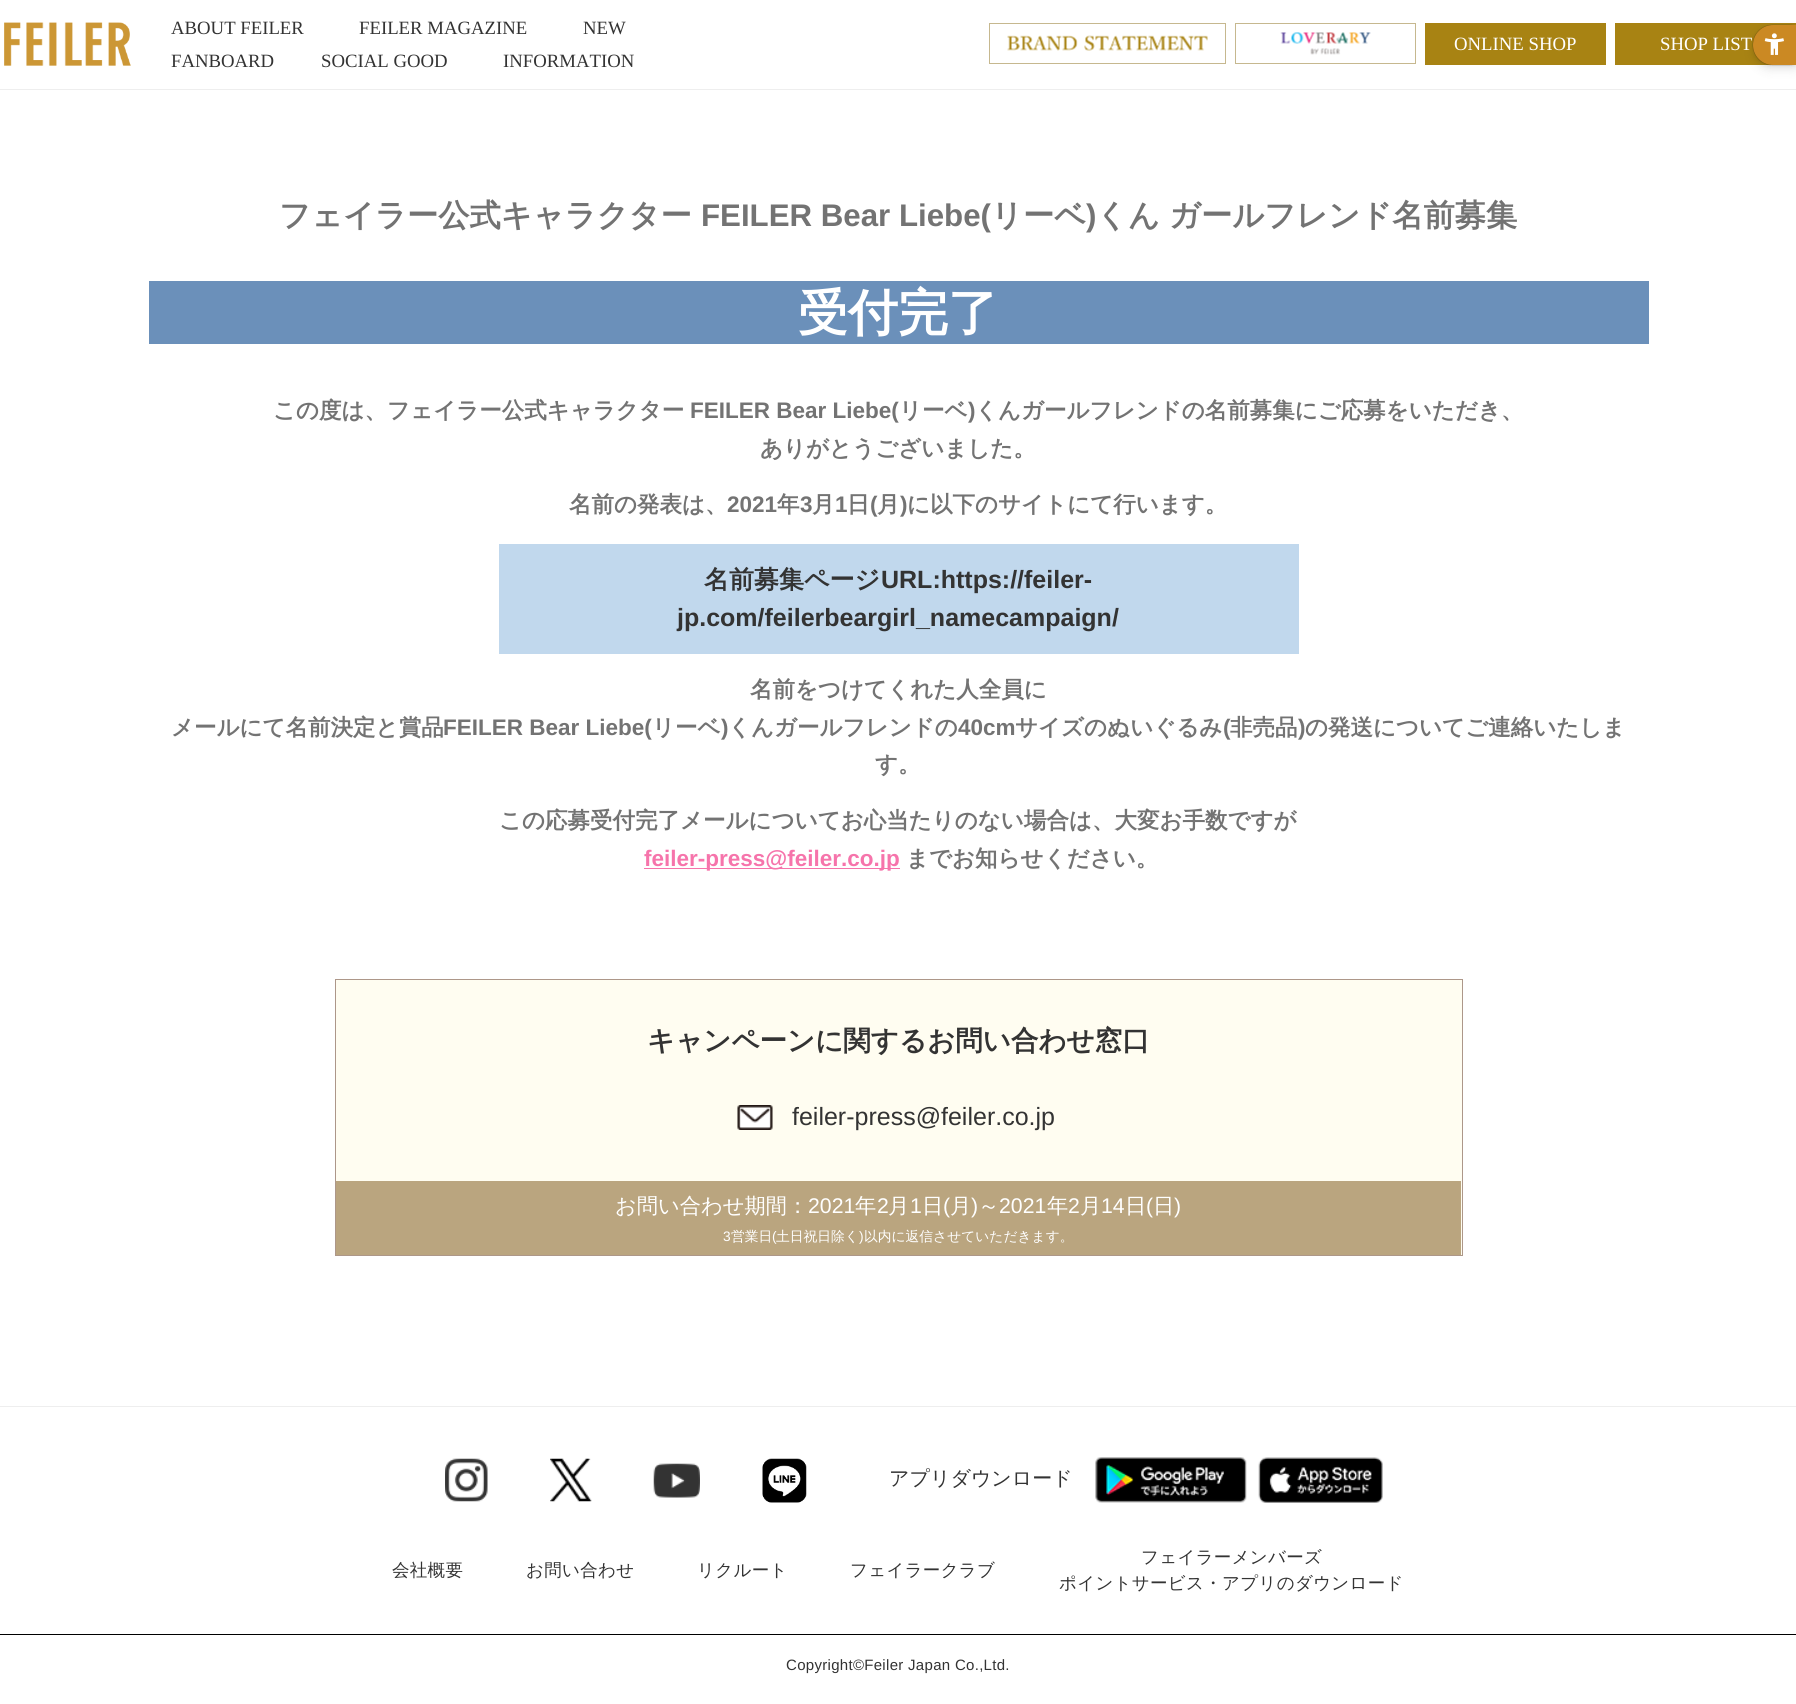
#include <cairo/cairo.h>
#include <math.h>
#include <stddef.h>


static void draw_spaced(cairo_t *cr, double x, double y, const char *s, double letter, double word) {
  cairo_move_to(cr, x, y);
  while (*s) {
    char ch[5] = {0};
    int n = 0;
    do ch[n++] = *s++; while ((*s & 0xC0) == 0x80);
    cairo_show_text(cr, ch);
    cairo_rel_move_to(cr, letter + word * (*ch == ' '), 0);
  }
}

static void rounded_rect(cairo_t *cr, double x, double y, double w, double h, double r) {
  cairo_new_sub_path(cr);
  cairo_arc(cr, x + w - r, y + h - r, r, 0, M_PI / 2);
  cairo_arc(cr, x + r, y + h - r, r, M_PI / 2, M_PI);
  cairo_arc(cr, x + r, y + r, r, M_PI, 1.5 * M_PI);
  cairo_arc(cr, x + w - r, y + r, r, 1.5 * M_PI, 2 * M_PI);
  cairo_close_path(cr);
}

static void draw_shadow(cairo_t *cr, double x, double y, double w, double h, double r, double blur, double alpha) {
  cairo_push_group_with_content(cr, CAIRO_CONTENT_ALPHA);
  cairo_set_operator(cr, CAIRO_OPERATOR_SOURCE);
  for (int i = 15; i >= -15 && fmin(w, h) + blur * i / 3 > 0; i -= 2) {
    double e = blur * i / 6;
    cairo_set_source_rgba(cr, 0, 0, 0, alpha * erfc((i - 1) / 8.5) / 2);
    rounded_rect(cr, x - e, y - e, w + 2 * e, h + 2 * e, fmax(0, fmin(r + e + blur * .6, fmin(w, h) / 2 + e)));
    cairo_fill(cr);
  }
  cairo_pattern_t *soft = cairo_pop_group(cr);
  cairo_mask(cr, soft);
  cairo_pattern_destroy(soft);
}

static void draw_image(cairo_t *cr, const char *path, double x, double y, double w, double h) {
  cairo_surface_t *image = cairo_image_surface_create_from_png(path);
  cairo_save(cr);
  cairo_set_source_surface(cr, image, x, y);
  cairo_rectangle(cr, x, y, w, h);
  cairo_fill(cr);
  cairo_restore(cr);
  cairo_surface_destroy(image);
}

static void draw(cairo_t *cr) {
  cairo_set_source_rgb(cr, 1, 1, 1);
  cairo_paint(cr);
  cairo_set_source_rgb(cr, 238 / 255.0, 238 / 255.0, 238 / 255.0);
  cairo_rectangle(cr, 0, 89, 1796, 1);
  cairo_fill(cr);
  draw_image(cr, "images/1.png", 4, 22, 127, 44);
  cairo_rectangle(cr, 989.5, 23.5, 236, 40);
  cairo_set_source_rgb(cr, 198 / 255.0, 184 / 255.0, 143 / 255.0);
  cairo_set_line_width(cr, 1);
  cairo_stroke(cr);
  draw_image(cr, "images/2.png", 1007, 35, 201, 16);
  cairo_rectangle(cr, 1235.5, 23.5, 180, 40);
  cairo_stroke(cr);
  draw_image(cr, "images/3.png", 1280, 32, 91, 23);
  cairo_set_source_rgb(cr, 168 / 255.0, 131 / 255.0, 19 / 255.0);
  cairo_rectangle(cr, 1425, 23, 181, 42);
  cairo_fill(cr);
  cairo_rectangle(cr, 1615, 23, 181, 42);
  cairo_fill(cr);
  cairo_set_source_rgb(cr, 107 / 255.0, 144 / 255.0, 186 / 255.0);
  cairo_rectangle(cr, 149, 281, 1500, 63);
  cairo_fill(cr);
  cairo_set_source_rgb(cr, 193 / 255.0, 216 / 255.0, 237 / 255.0);
  cairo_rectangle(cr, 499, 544, 800, 110);
  cairo_fill(cr);
  cairo_set_source_rgb(cr, 246 / 255.0, 116 / 255.0, 171 / 255.0);
  cairo_rectangle(cr, 644, 868, 256, 1);
  cairo_fill(cr);
  cairo_set_source_rgb(cr, 1, 253 / 255.0, 241 / 255.0);
  cairo_rectangle(cr, 335.5, 979.5, 1127, 276);
  cairo_fill_preserve(cr);
  cairo_set_source_rgb(cr, 173 / 255.0, 151 / 255.0, 137 / 255.0);
  cairo_stroke(cr);
  draw_image(cr, "images/4.png", 737, 1105, 36, 25);
  cairo_set_source_rgb(cr, 186 / 255.0, 165 / 255.0, 127 / 255.0);
  cairo_rectangle(cr, 336, 1181, 1125, 74);
  cairo_fill(cr);
  cairo_set_source_rgb(cr, 238 / 255.0, 238 / 255.0, 238 / 255.0);
  cairo_rectangle(cr, 0, 1406, 1796, 1);
  cairo_fill(cr);
  draw_image(cr, "images/5.png", 445, 1458, 43, 44);
  draw_image(cr, "images/6.png", 550, 1458, 42, 44);
  draw_image(cr, "images/7.png", 653, 1463, 47, 35);
  draw_image(cr, "images/8.png", 762, 1458, 45, 45);
  draw_image(cr, "images/9.png", 1095, 1457, 152, 46);
  draw_image(cr, "images/10.png", 1258, 1457, 125, 46);
  cairo_set_source_rgb(cr, 0, 0, 0);
  cairo_rectangle(cr, 0, 1634, 1796, 1);
  cairo_fill(cr);
  cairo_set_source_rgb(cr, 0, 0, 0);
  draw_shadow(cr, 1753, 30, 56, 40, 20, 5, 0.09);
  draw_shadow(cr, 1753, 26, 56, 40, 20, 2, 0.09);
  draw_shadow(cr, 1753, 25, 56, 40, 20, 0.5, 0.4);
  cairo_set_source_rgb(cr, 203 / 255.0, 137 / 255.0, 35 / 255.0);
  cairo_new_path(cr);
  cairo_move_to(cr, 1773, 25);
  cairo_line_to(cr, 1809, 25);
  cairo_line_to(cr, 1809, 65);
  cairo_line_to(cr, 1773, 65);
  cairo_curve_to(cr, 1762, 65, 1753, 56, 1753, 45);
  cairo_curve_to(cr, 1753, 34, 1762, 25, 1773, 25);
  cairo_close_path(cr);
  cairo_fill(cr);
  draw_image(cr, "images/11.png", 1764, 33, 20, 22);
  cairo_select_font_face(cr, "Liberation Serif", CAIRO_FONT_SLANT_NORMAL, CAIRO_FONT_WEIGHT_NORMAL);
  cairo_set_font_size(cr, 18.75);
  cairo_set_source_rgb(cr, 51 / 255.0, 51 / 255.0, 51 / 255.0);
  cairo_move_to(cr, 171, 34);
  cairo_show_text(cr, "ABOUT FEILER");
  cairo_move_to(cr, 359, 34);
  cairo_show_text(cr, "FEILER MAGAZINE");
  cairo_move_to(cr, 583, 34);
  cairo_show_text(cr, "NEW");
  cairo_move_to(cr, 171, 67);
  cairo_show_text(cr, "FANBOARD");
  cairo_move_to(cr, 321, 67);
  cairo_show_text(cr, "SOCIAL GOOD");
  cairo_move_to(cr, 503, 67);
  cairo_show_text(cr, "INFORMATION");
  cairo_set_source_rgb(cr, 1, 1, 1);
  cairo_move_to(cr, 1454, 50);
  cairo_show_text(cr, "ONLINE SHOP");
  cairo_move_to(cr, 1660, 50);
  cairo_show_text(cr, "SHOP LIST");
  cairo_select_font_face(cr, "WenQuanYi Zen Hei", CAIRO_FONT_SLANT_NORMAL, CAIRO_FONT_WEIGHT_BOLD);
  cairo_set_font_size(cr, 31.25);
  cairo_set_source_rgb(cr, 115 / 255.0, 115 / 255.0, 115 / 255.0);
  cairo_move_to(cr, 279, 226);
  cairo_show_text(cr, "フェイラー公式キャラクター");
  cairo_select_font_face(cr, "Liberation Sans", CAIRO_FONT_SLANT_NORMAL, CAIRO_FONT_WEIGHT_BOLD);
  cairo_move_to(cr, 701, 226);
  cairo_show_text(cr, "FEILER Bear Liebe(");
  cairo_select_font_face(cr, "WenQuanYi Zen Hei", CAIRO_FONT_SLANT_NORMAL, CAIRO_FONT_WEIGHT_BOLD);
  cairo_move_to(cr, 991, 226);
  cairo_show_text(cr, "リーベ");
  cairo_select_font_face(cr, "Liberation Sans", CAIRO_FONT_SLANT_NORMAL, CAIRO_FONT_WEIGHT_BOLD);
  cairo_move_to(cr, 1086, 226);
  cairo_show_text(cr, ")");
  cairo_select_font_face(cr, "WenQuanYi Zen Hei", CAIRO_FONT_SLANT_NORMAL, CAIRO_FONT_WEIGHT_BOLD);
  cairo_move_to(cr, 1096, 226);
  cairo_show_text(cr, "くん");
  cairo_move_to(cr, 1169, 226);
  cairo_show_text(cr, "ガールフレンド名前募集");
  cairo_set_font_size(cr, 50);
  cairo_set_source_rgb(cr, 1, 1, 1);
  cairo_move_to(cr, 798, 330);
  cairo_show_text(cr, "受付完了");
  cairo_set_font_size(cr, 22.5);
  cairo_set_source_rgb(cr, 115 / 255.0, 115 / 255.0, 115 / 255.0);
  cairo_move_to(cr, 273, 418);
  cairo_show_text(cr, "この度は、フェイラー公式キャラクター");
  cairo_select_font_face(cr, "Liberation Sans", CAIRO_FONT_SLANT_NORMAL, CAIRO_FONT_WEIGHT_BOLD);
  cairo_move_to(cr, 690, 418);
  cairo_show_text(cr, "FEILER Bear Liebe(");
  cairo_select_font_face(cr, "WenQuanYi Zen Hei", CAIRO_FONT_SLANT_NORMAL, CAIRO_FONT_WEIGHT_BOLD);
  cairo_move_to(cr, 899, 418);
  cairo_show_text(cr, "リーベ");
  cairo_select_font_face(cr, "Liberation Sans", CAIRO_FONT_SLANT_NORMAL, CAIRO_FONT_WEIGHT_BOLD);
  cairo_move_to(cr, 968, 418);
  cairo_show_text(cr, ")");
  cairo_select_font_face(cr, "WenQuanYi Zen Hei", CAIRO_FONT_SLANT_NORMAL, CAIRO_FONT_WEIGHT_BOLD);
  cairo_move_to(cr, 975, 418);
  cairo_show_text(cr, "くんガールフレンドの名前募集にご応募をいただき、");
  cairo_move_to(cr, 760, 456);
  cairo_show_text(cr, "ありがとうございました。");
  cairo_move_to(cr, 569, 512);
  cairo_show_text(cr, "名前の発表は、");
  cairo_select_font_face(cr, "Liberation Sans", CAIRO_FONT_SLANT_NORMAL, CAIRO_FONT_WEIGHT_BOLD);
  cairo_move_to(cr, 727, 512);
  cairo_show_text(cr, "2021");
  cairo_select_font_face(cr, "WenQuanYi Zen Hei", CAIRO_FONT_SLANT_NORMAL, CAIRO_FONT_WEIGHT_BOLD);
  cairo_move_to(cr, 777, 512);
  cairo_show_text(cr, "年");
  cairo_select_font_face(cr, "Liberation Sans", CAIRO_FONT_SLANT_NORMAL, CAIRO_FONT_WEIGHT_BOLD);
  cairo_move_to(cr, 800, 512);
  cairo_show_text(cr, "3");
  cairo_select_font_face(cr, "WenQuanYi Zen Hei", CAIRO_FONT_SLANT_NORMAL, CAIRO_FONT_WEIGHT_BOLD);
  cairo_move_to(cr, 812, 512);
  cairo_show_text(cr, "月");
  cairo_select_font_face(cr, "Liberation Sans", CAIRO_FONT_SLANT_NORMAL, CAIRO_FONT_WEIGHT_BOLD);
  cairo_move_to(cr, 835, 512);
  cairo_show_text(cr, "1");
  cairo_select_font_face(cr, "WenQuanYi Zen Hei", CAIRO_FONT_SLANT_NORMAL, CAIRO_FONT_WEIGHT_BOLD);
  cairo_move_to(cr, 847, 512);
  cairo_show_text(cr, "日");
  cairo_select_font_face(cr, "Liberation Sans", CAIRO_FONT_SLANT_NORMAL, CAIRO_FONT_WEIGHT_BOLD);
  cairo_move_to(cr, 870, 512);
  cairo_show_text(cr, "(");
  cairo_select_font_face(cr, "WenQuanYi Zen Hei", CAIRO_FONT_SLANT_NORMAL, CAIRO_FONT_WEIGHT_BOLD);
  cairo_move_to(cr, 877, 512);
  cairo_show_text(cr, "月");
  cairo_select_font_face(cr, "Liberation Sans", CAIRO_FONT_SLANT_NORMAL, CAIRO_FONT_WEIGHT_BOLD);
  cairo_move_to(cr, 900, 512);
  cairo_show_text(cr, ")");
  cairo_select_font_face(cr, "WenQuanYi Zen Hei", CAIRO_FONT_SLANT_NORMAL, CAIRO_FONT_WEIGHT_BOLD);
  cairo_move_to(cr, 907, 512);
  cairo_show_text(cr, "に以下のサイトにて行います。");
  cairo_set_font_size(cr, 25);
  cairo_set_source_rgb(cr, 51 / 255.0, 51 / 255.0, 51 / 255.0);
  cairo_move_to(cr, 704, 588);
  cairo_show_text(cr, "名前募集ページ");
  cairo_select_font_face(cr, "Liberation Sans", CAIRO_FONT_SLANT_NORMAL, CAIRO_FONT_WEIGHT_BOLD);
  cairo_move_to(cr, 881, 588);
  cairo_show_text(cr, "URL:https://feiler-");
  cairo_move_to(cr, 677, 626);
  cairo_show_text(cr, "jp.com/feilerbeargirl_namecampaign/");
  cairo_select_font_face(cr, "WenQuanYi Zen Hei", CAIRO_FONT_SLANT_NORMAL, CAIRO_FONT_WEIGHT_BOLD);
  cairo_set_font_size(cr, 22.5);
  cairo_set_source_rgb(cr, 115 / 255.0, 115 / 255.0, 115 / 255.0);
  cairo_move_to(cr, 750, 697);
  cairo_show_text(cr, "名前をつけてくれた人全員に");
  cairo_move_to(cr, 171, 735);
  cairo_show_text(cr, "メールにて名前決定と賞品");
  cairo_select_font_face(cr, "Liberation Sans", CAIRO_FONT_SLANT_NORMAL, CAIRO_FONT_WEIGHT_BOLD);
  cairo_move_to(cr, 443, 735);
  cairo_show_text(cr, "FEILER Bear Liebe(");
  cairo_select_font_face(cr, "WenQuanYi Zen Hei", CAIRO_FONT_SLANT_NORMAL, CAIRO_FONT_WEIGHT_BOLD);
  cairo_move_to(cr, 652, 735);
  cairo_show_text(cr, "リーベ");
  cairo_select_font_face(cr, "Liberation Sans", CAIRO_FONT_SLANT_NORMAL, CAIRO_FONT_WEIGHT_BOLD);
  cairo_move_to(cr, 721, 735);
  cairo_show_text(cr, ")");
  cairo_select_font_face(cr, "WenQuanYi Zen Hei", CAIRO_FONT_SLANT_NORMAL, CAIRO_FONT_WEIGHT_BOLD);
  cairo_move_to(cr, 728, 735);
  cairo_show_text(cr, "くんガールフレンドの");
  cairo_select_font_face(cr, "Liberation Sans", CAIRO_FONT_SLANT_NORMAL, CAIRO_FONT_WEIGHT_BOLD);
  cairo_move_to(cr, 958, 735);
  cairo_show_text(cr, "40cm");
  cairo_select_font_face(cr, "WenQuanYi Zen Hei", CAIRO_FONT_SLANT_NORMAL, CAIRO_FONT_WEIGHT_BOLD);
  cairo_move_to(cr, 1015, 735);
  cairo_show_text(cr, "サイズのぬいぐるみ");
  cairo_select_font_face(cr, "Liberation Sans", CAIRO_FONT_SLANT_NORMAL, CAIRO_FONT_WEIGHT_BOLD);
  cairo_move_to(cr, 1223, 735);
  cairo_show_text(cr, "(");
  cairo_select_font_face(cr, "WenQuanYi Zen Hei", CAIRO_FONT_SLANT_NORMAL, CAIRO_FONT_WEIGHT_BOLD);
  cairo_move_to(cr, 1230, 735);
  cairo_show_text(cr, "非売品");
  cairo_select_font_face(cr, "Liberation Sans", CAIRO_FONT_SLANT_NORMAL, CAIRO_FONT_WEIGHT_BOLD);
  cairo_move_to(cr, 1298, 735);
  cairo_show_text(cr, ")");
  cairo_select_font_face(cr, "WenQuanYi Zen Hei", CAIRO_FONT_SLANT_NORMAL, CAIRO_FONT_WEIGHT_BOLD);
  cairo_move_to(cr, 1305, 735);
  cairo_show_text(cr, "の発送についてご連絡いたしま");
  cairo_move_to(cr, 875, 772);
  cairo_show_text(cr, "す。");
  cairo_move_to(cr, 499, 828);
  cairo_show_text(cr, "この応募受付完了メールについてお心当たりのない場合は、大変お手数ですが");
  cairo_select_font_face(cr, "Liberation Sans", CAIRO_FONT_SLANT_NORMAL, CAIRO_FONT_WEIGHT_BOLD);
  cairo_set_source_rgb(cr, 246 / 255.0, 116 / 255.0, 171 / 255.0);
  cairo_move_to(cr, 644, 866);
  cairo_show_text(cr, "feiler-press@feiler.co.jp");
  cairo_select_font_face(cr, "WenQuanYi Zen Hei", CAIRO_FONT_SLANT_NORMAL, CAIRO_FONT_WEIGHT_BOLD);
  cairo_set_source_rgb(cr, 115 / 255.0, 115 / 255.0, 115 / 255.0);
  cairo_move_to(cr, 906, 866);
  cairo_show_text(cr, "までお知らせください。");
  cairo_set_font_size(cr, 27.5);
  cairo_set_source_rgb(cr, 51 / 255.0, 51 / 255.0, 51 / 255.0);
  cairo_move_to(cr, 647, 1050);
  cairo_show_text(cr, "キャンペーンに関するお問い合わせ窓口");
  cairo_select_font_face(cr, "Liberation Sans", CAIRO_FONT_SLANT_NORMAL, CAIRO_FONT_WEIGHT_NORMAL);
  cairo_set_font_size(cr, 25);
  cairo_move_to(cr, 792, 1125);
  cairo_show_text(cr, "feiler-press@feiler.co.jp");
  cairo_select_font_face(cr, "WenQuanYi Zen Hei Medium", CAIRO_FONT_SLANT_NORMAL, CAIRO_FONT_WEIGHT_NORMAL);
  cairo_set_font_size(cr, 21.25);
  cairo_set_source_rgb(cr, 1, 1, 1);
  cairo_move_to(cr, 615, 1213);
  cairo_show_text(cr, "お問い合わせ期間：");
  cairo_select_font_face(cr, "Liberation Sans", CAIRO_FONT_SLANT_NORMAL, CAIRO_FONT_WEIGHT_NORMAL);
  cairo_move_to(cr, 808, 1213);
  cairo_show_text(cr, "2021");
  cairo_select_font_face(cr, "WenQuanYi Zen Hei Medium", CAIRO_FONT_SLANT_NORMAL, CAIRO_FONT_WEIGHT_NORMAL);
  cairo_move_to(cr, 855, 1213);
  cairo_show_text(cr, "年");
  cairo_select_font_face(cr, "Liberation Sans", CAIRO_FONT_SLANT_NORMAL, CAIRO_FONT_WEIGHT_NORMAL);
  cairo_move_to(cr, 877, 1213);
  cairo_show_text(cr, "2");
  cairo_select_font_face(cr, "WenQuanYi Zen Hei Medium", CAIRO_FONT_SLANT_NORMAL, CAIRO_FONT_WEIGHT_NORMAL);
  cairo_move_to(cr, 888, 1213);
  cairo_show_text(cr, "月");
  cairo_select_font_face(cr, "Liberation Sans", CAIRO_FONT_SLANT_NORMAL, CAIRO_FONT_WEIGHT_NORMAL);
  cairo_move_to(cr, 910, 1213);
  cairo_show_text(cr, "1");
  cairo_select_font_face(cr, "WenQuanYi Zen Hei Medium", CAIRO_FONT_SLANT_NORMAL, CAIRO_FONT_WEIGHT_NORMAL);
  cairo_move_to(cr, 922, 1213);
  cairo_show_text(cr, "日");
  cairo_select_font_face(cr, "Liberation Sans", CAIRO_FONT_SLANT_NORMAL, CAIRO_FONT_WEIGHT_NORMAL);
  cairo_move_to(cr, 943, 1213);
  cairo_show_text(cr, "(");
  cairo_select_font_face(cr, "WenQuanYi Zen Hei Medium", CAIRO_FONT_SLANT_NORMAL, CAIRO_FONT_WEIGHT_NORMAL);
  cairo_move_to(cr, 950, 1213);
  cairo_show_text(cr, "月");
  cairo_select_font_face(cr, "Liberation Sans", CAIRO_FONT_SLANT_NORMAL, CAIRO_FONT_WEIGHT_NORMAL);
  cairo_move_to(cr, 971, 1213);
  cairo_show_text(cr, ")");
  cairo_select_font_face(cr, "WenQuanYi Zen Hei Medium", CAIRO_FONT_SLANT_NORMAL, CAIRO_FONT_WEIGHT_NORMAL);
  cairo_move_to(cr, 978, 1213);
  cairo_show_text(cr, "～");
  cairo_select_font_face(cr, "Liberation Sans", CAIRO_FONT_SLANT_NORMAL, CAIRO_FONT_WEIGHT_NORMAL);
  cairo_move_to(cr, 999, 1213);
  cairo_show_text(cr, "2021");
  cairo_select_font_face(cr, "WenQuanYi Zen Hei Medium", CAIRO_FONT_SLANT_NORMAL, CAIRO_FONT_WEIGHT_NORMAL);
  cairo_move_to(cr, 1047, 1213);
  cairo_show_text(cr, "年");
  cairo_select_font_face(cr, "Liberation Sans", CAIRO_FONT_SLANT_NORMAL, CAIRO_FONT_WEIGHT_NORMAL);
  cairo_move_to(cr, 1068, 1213);
  cairo_show_text(cr, "2");
  cairo_select_font_face(cr, "WenQuanYi Zen Hei Medium", CAIRO_FONT_SLANT_NORMAL, CAIRO_FONT_WEIGHT_NORMAL);
  cairo_move_to(cr, 1080, 1213);
  cairo_show_text(cr, "月");
  cairo_select_font_face(cr, "Liberation Sans", CAIRO_FONT_SLANT_NORMAL, CAIRO_FONT_WEIGHT_NORMAL);
  cairo_move_to(cr, 1101, 1213);
  cairo_show_text(cr, "14");
  cairo_select_font_face(cr, "WenQuanYi Zen Hei Medium", CAIRO_FONT_SLANT_NORMAL, CAIRO_FONT_WEIGHT_NORMAL);
  cairo_move_to(cr, 1125, 1213);
  cairo_show_text(cr, "日");
  cairo_select_font_face(cr, "Liberation Sans", CAIRO_FONT_SLANT_NORMAL, CAIRO_FONT_WEIGHT_NORMAL);
  cairo_move_to(cr, 1146, 1213);
  cairo_show_text(cr, "(");
  cairo_select_font_face(cr, "WenQuanYi Zen Hei Medium", CAIRO_FONT_SLANT_NORMAL, CAIRO_FONT_WEIGHT_NORMAL);
  cairo_move_to(cr, 1153, 1213);
  cairo_show_text(cr, "日");
  cairo_select_font_face(cr, "Liberation Sans", CAIRO_FONT_SLANT_NORMAL, CAIRO_FONT_WEIGHT_NORMAL);
  cairo_move_to(cr, 1174, 1213);
  cairo_show_text(cr, ")");
  cairo_set_font_size(cr, 13.75);
  cairo_move_to(cr, 723, 1241);
  cairo_show_text(cr, "3");
  cairo_select_font_face(cr, "WenQuanYi Zen Hei Medium", CAIRO_FONT_SLANT_NORMAL, CAIRO_FONT_WEIGHT_NORMAL);
  cairo_move_to(cr, 731, 1241);
  cairo_show_text(cr, "営業日");
  cairo_select_font_face(cr, "Liberation Sans", CAIRO_FONT_SLANT_NORMAL, CAIRO_FONT_WEIGHT_NORMAL);
  cairo_move_to(cr, 772, 1241);
  cairo_show_text(cr, "(");
  cairo_select_font_face(cr, "WenQuanYi Zen Hei Medium", CAIRO_FONT_SLANT_NORMAL, CAIRO_FONT_WEIGHT_NORMAL);
  cairo_move_to(cr, 776, 1241);
  cairo_show_text(cr, "土日祝日除く");
  cairo_select_font_face(cr, "Liberation Sans", CAIRO_FONT_SLANT_NORMAL, CAIRO_FONT_WEIGHT_NORMAL);
  cairo_move_to(cr, 859, 1241);
  cairo_show_text(cr, ")");
  cairo_select_font_face(cr, "WenQuanYi Zen Hei Medium", CAIRO_FONT_SLANT_NORMAL, CAIRO_FONT_WEIGHT_NORMAL);
  cairo_move_to(cr, 864, 1241);
  cairo_show_text(cr, "以内に返信させていただきます。");
  cairo_set_font_size(cr, 20);
  cairo_set_source_rgb(cr, 51 / 255.0, 51 / 255.0, 51 / 255.0);
  cairo_move_to(cr, 889, 1485);
  cairo_show_text(cr, "アプリダウンロード");
  cairo_set_font_size(cr, 17.5);
  draw_spaced(cr, 392, 1576, "会社概要", 0.3, 0);
  draw_spaced(cr, 526, 1576, "お問い合わせ", 0.3, 0);
  draw_spaced(cr, 697, 1576, "リクルート", 0.3, 0);
  draw_spaced(cr, 850, 1576, "フェイラークラブ", 0.3, 0);
  draw_spaced(cr, 1141, 1563, "フェイラーメンバーズ", 0.3, 0);
  draw_spaced(cr, 1059, 1589, "ポイントサービス・アプリのダウンロード", 0.3, 0);
  cairo_select_font_face(cr, "Liberation Sans", CAIRO_FONT_SLANT_NORMAL, CAIRO_FONT_WEIGHT_NORMAL);
  cairo_set_font_size(cr, 15);
  draw_spaced(cr, 786, 1670, "Copyright©Feiler Japan Co.,Ltd.", 0.3, 0);
}

int main(void) {
  cairo_surface_t *surface = cairo_image_surface_create(CAIRO_FORMAT_RGB24, 1796, 1704);
  cairo_t *cr = cairo_create(surface);
  cairo_font_options_t *options = cairo_font_options_create();
  cairo_font_options_set_hint_metrics(options, CAIRO_HINT_METRICS_OFF);
  cairo_font_options_set_hint_style(options, CAIRO_HINT_STYLE_NONE);
  cairo_set_font_options(cr, options);
  cairo_set_miter_limit(cr, 4);
  draw(cr);
  cairo_surface_write_to_png(surface, "out.png");
  cairo_font_options_destroy(options);
  cairo_destroy(cr);
  cairo_surface_destroy(surface);
  return 0;
}
